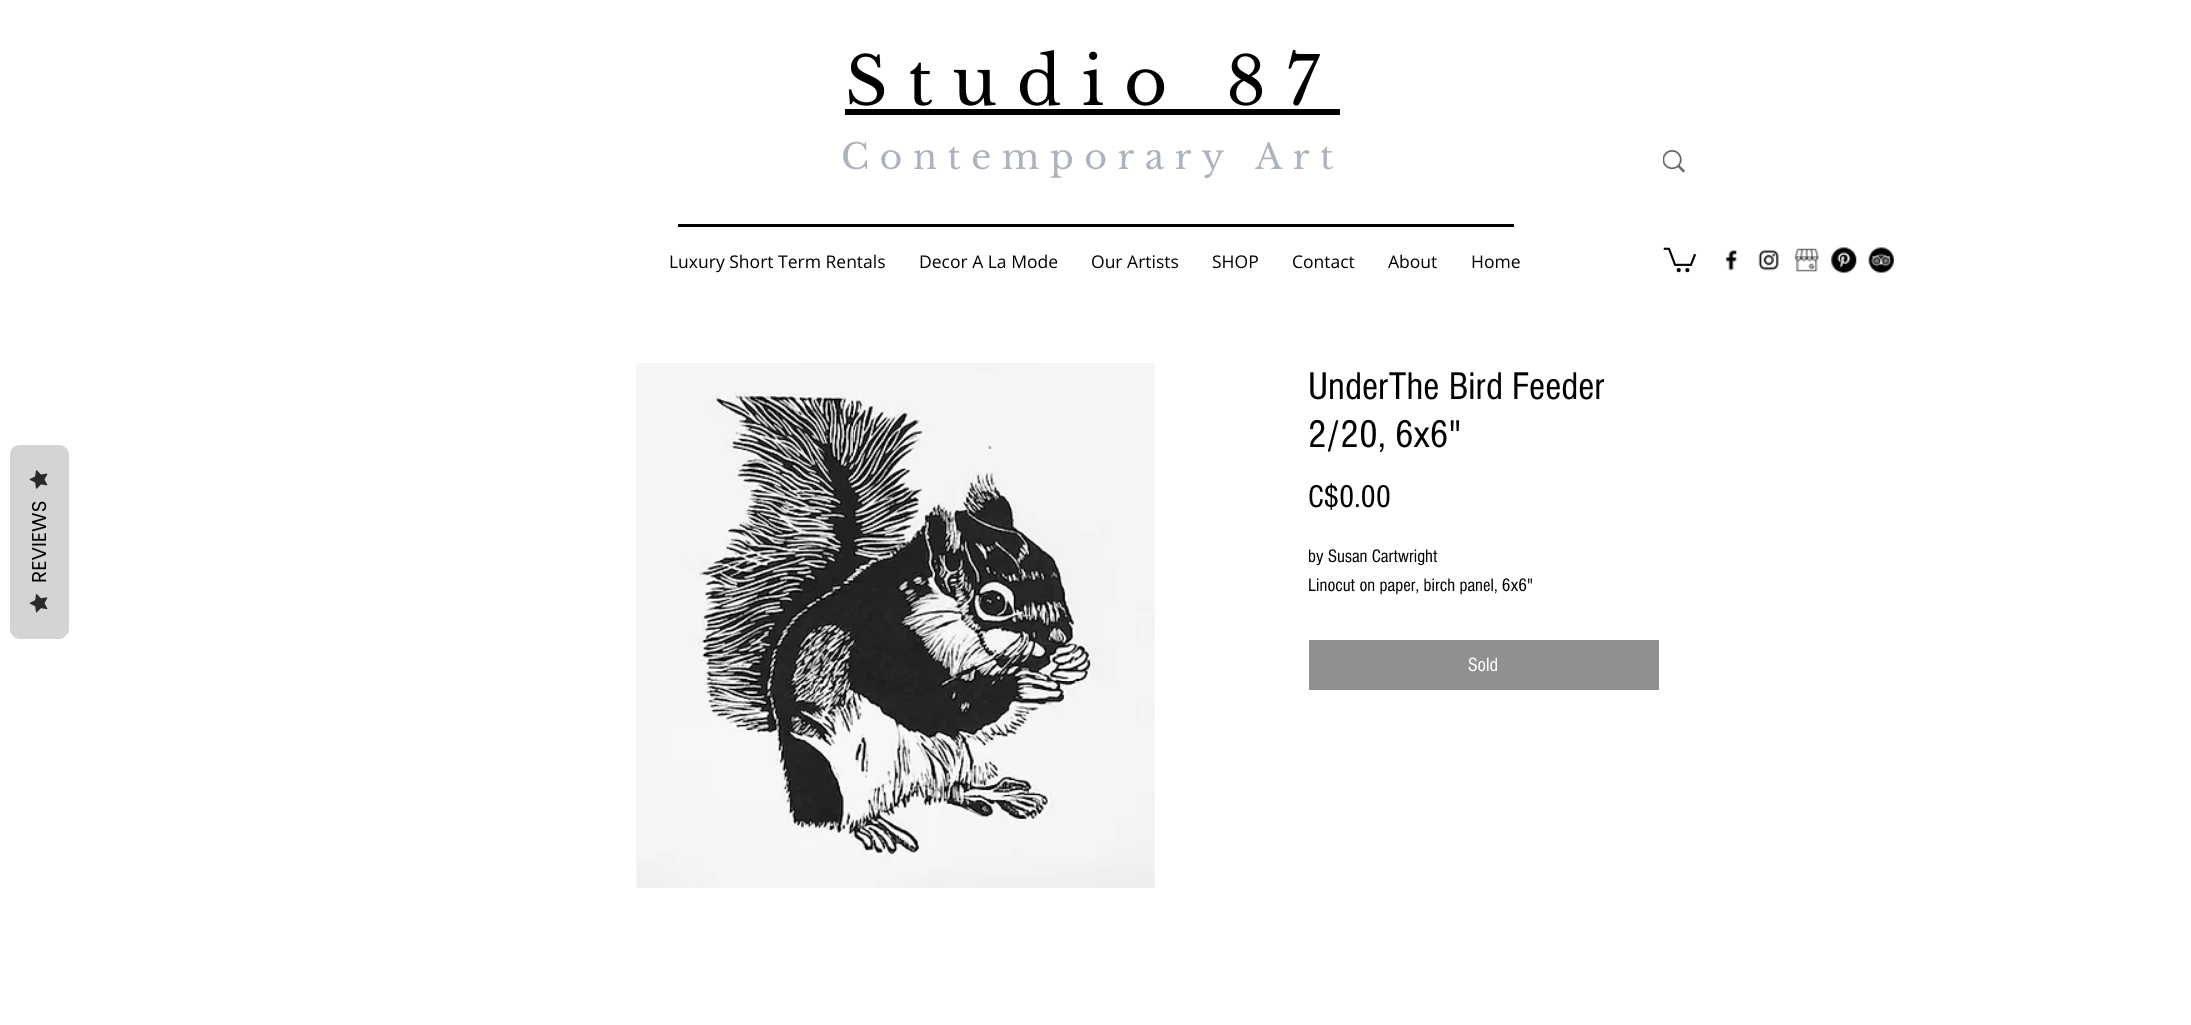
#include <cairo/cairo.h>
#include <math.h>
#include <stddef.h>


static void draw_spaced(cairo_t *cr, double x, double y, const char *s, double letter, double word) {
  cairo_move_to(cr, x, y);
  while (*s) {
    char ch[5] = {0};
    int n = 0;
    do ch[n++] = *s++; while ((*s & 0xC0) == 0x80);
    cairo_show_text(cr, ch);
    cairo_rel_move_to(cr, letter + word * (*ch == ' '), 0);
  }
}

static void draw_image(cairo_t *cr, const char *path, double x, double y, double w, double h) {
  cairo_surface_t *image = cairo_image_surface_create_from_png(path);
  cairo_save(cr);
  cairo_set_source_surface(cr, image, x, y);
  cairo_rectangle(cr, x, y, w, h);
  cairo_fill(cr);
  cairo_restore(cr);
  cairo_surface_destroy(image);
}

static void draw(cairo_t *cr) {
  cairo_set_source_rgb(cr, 1, 1, 1);
  cairo_paint(cr);
  cairo_set_source_rgb(cr, 212 / 255.0, 212 / 255.0, 212 / 255.0);
  cairo_new_path(cr);
  cairo_move_to(cr, 10, 629);
  cairo_line_to(cr, 10, 455);
  cairo_curve_to(cr, 10, 449, 14, 445, 20, 445);
  cairo_line_to(cr, 59, 445);
  cairo_curve_to(cr, 64, 445, 69, 449, 69, 455);
  cairo_line_to(cr, 69, 629);
  cairo_curve_to(cr, 69, 634, 64, 639, 59, 639);
  cairo_line_to(cr, 20, 639);
  cairo_curve_to(cr, 14, 639, 10, 634, 10, 629);
  cairo_close_path(cr);
  cairo_fill(cr);
  draw_image(cr, "images/1.png", 29, 470, 19, 19);
  draw_image(cr, "images/2.png", 29, 594, 19, 19);
  cairo_set_source_rgb(cr, 0, 0, 0);
  cairo_rectangle(cr, 845, 109, 495, 6);
  cairo_fill(cr);
  draw_image(cr, "images/3.png", 1663, 150, 22, 23);
  cairo_rectangle(cr, 678, 224, 836, 3);
  cairo_fill(cr);
  draw_image(cr, "images/4.png", 1663, 247, 34, 26);
  draw_image(cr, "images/5.png", 1726, 249, 11, 22);
  draw_image(cr, "images/6.png", 1758, 249, 21, 22);
  draw_image(cr, "images/7.png", 1794, 248, 25, 24);
  draw_image(cr, "images/8.png", 1831, 247, 26, 26);
  draw_image(cr, "images/9.png", 1868, 247, 26, 26);
  draw_image(cr, "images/10.png", 636, 363, 519, 525);
  cairo_set_source_rgb(cr, 144 / 255.0, 144 / 255.0, 144 / 255.0);
  cairo_rectangle(cr, 1309, 640, 350, 50);
  cairo_fill(cr);
  cairo_select_font_face(cr, "Poppins", CAIRO_FONT_SLANT_NORMAL, CAIRO_FONT_WEIGHT_NORMAL);
  cairo_set_font_size(cr, 20);
  cairo_set_source_rgb(cr, 0, 0, 0);
  cairo_save(cr);
  cairo_translate(cr, 46, 583);
  cairo_rotate(cr, -90 * M_PI / 180);
  cairo_move_to(cr, 0, 0);
  cairo_show_text(cr, "REVIEWS");
  cairo_restore(cr);
  cairo_select_font_face(cr, "Libre Baskerville", CAIRO_FONT_SLANT_NORMAL, CAIRO_FONT_WEIGHT_NORMAL);
  cairo_set_font_size(cr, 66.25);
  draw_spaced(cr, 845, 105, "Studio 87", 19.9, 0);
  cairo_set_font_size(cr, 35);
  cairo_set_source_rgb(cr, 173 / 255.0, 179 / 255.0, 188 / 255.0);
  draw_spaced(cr, 841, 169, "Contemporary Art", 10.5, 0);
  cairo_select_font_face(cr, "Open Sans", CAIRO_FONT_SLANT_NORMAL, CAIRO_FONT_WEIGHT_NORMAL);
  cairo_set_font_size(cr, 17.5);
  cairo_set_source_rgb(cr, 0, 0, 0);
  cairo_move_to(cr, 669, 268);
  cairo_show_text(cr, "Luxury Short Term Rentals");
  cairo_move_to(cr, 919, 268);
  cairo_show_text(cr, "Decor A La Mode");
  cairo_move_to(cr, 1091, 268);
  cairo_show_text(cr, "Our Artists");
  cairo_move_to(cr, 1212, 268);
  cairo_show_text(cr, "SHOP");
  cairo_move_to(cr, 1292, 268);
  cairo_show_text(cr, "Contact");
  cairo_move_to(cr, 1388, 268);
  cairo_show_text(cr, "About");
  cairo_move_to(cr, 1471, 268);
  cairo_show_text(cr, "Home");
  cairo_select_font_face(cr, "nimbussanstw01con", CAIRO_FONT_SLANT_NORMAL, CAIRO_FONT_WEIGHT_NORMAL);
  cairo_set_font_size(cr, 40);
  cairo_move_to(cr, 1308, 399);
  cairo_show_text(cr, "UnderThe Bird Feeder");
  cairo_move_to(cr, 1308, 447);
  cairo_show_text(cr, "2/20, 6x6\"");
  cairo_set_font_size(cr, 32.5);
  cairo_move_to(cr, 1308, 507);
  cairo_show_text(cr, "C$0.00");
  cairo_set_font_size(cr, 18.75);
  cairo_move_to(cr, 1308, 562);
  cairo_show_text(cr, "by Susan Cartwright");
  cairo_move_to(cr, 1308, 591);
  cairo_show_text(cr, "Linocut on paper, birch panel, 6x6\"");
  cairo_set_font_size(cr, 20);
  cairo_set_source_rgb(cr, 1, 1, 1);
  cairo_move_to(cr, 1468, 671);
  cairo_show_text(cr, "Sold");
}

int main(void) {
  cairo_surface_t *surface = cairo_image_surface_create(CAIRO_FORMAT_RGB24, 2191, 1025);
  cairo_t *cr = cairo_create(surface);
  cairo_font_options_t *options = cairo_font_options_create();
  cairo_font_options_set_hint_metrics(options, CAIRO_HINT_METRICS_OFF);
  cairo_font_options_set_hint_style(options, CAIRO_HINT_STYLE_NONE);
  cairo_set_font_options(cr, options);
  cairo_set_miter_limit(cr, 4);
  draw(cr);
  cairo_surface_write_to_png(surface, "out.png");
  cairo_font_options_destroy(options);
  cairo_destroy(cr);
  cairo_surface_destroy(surface);
  return 0;
}
